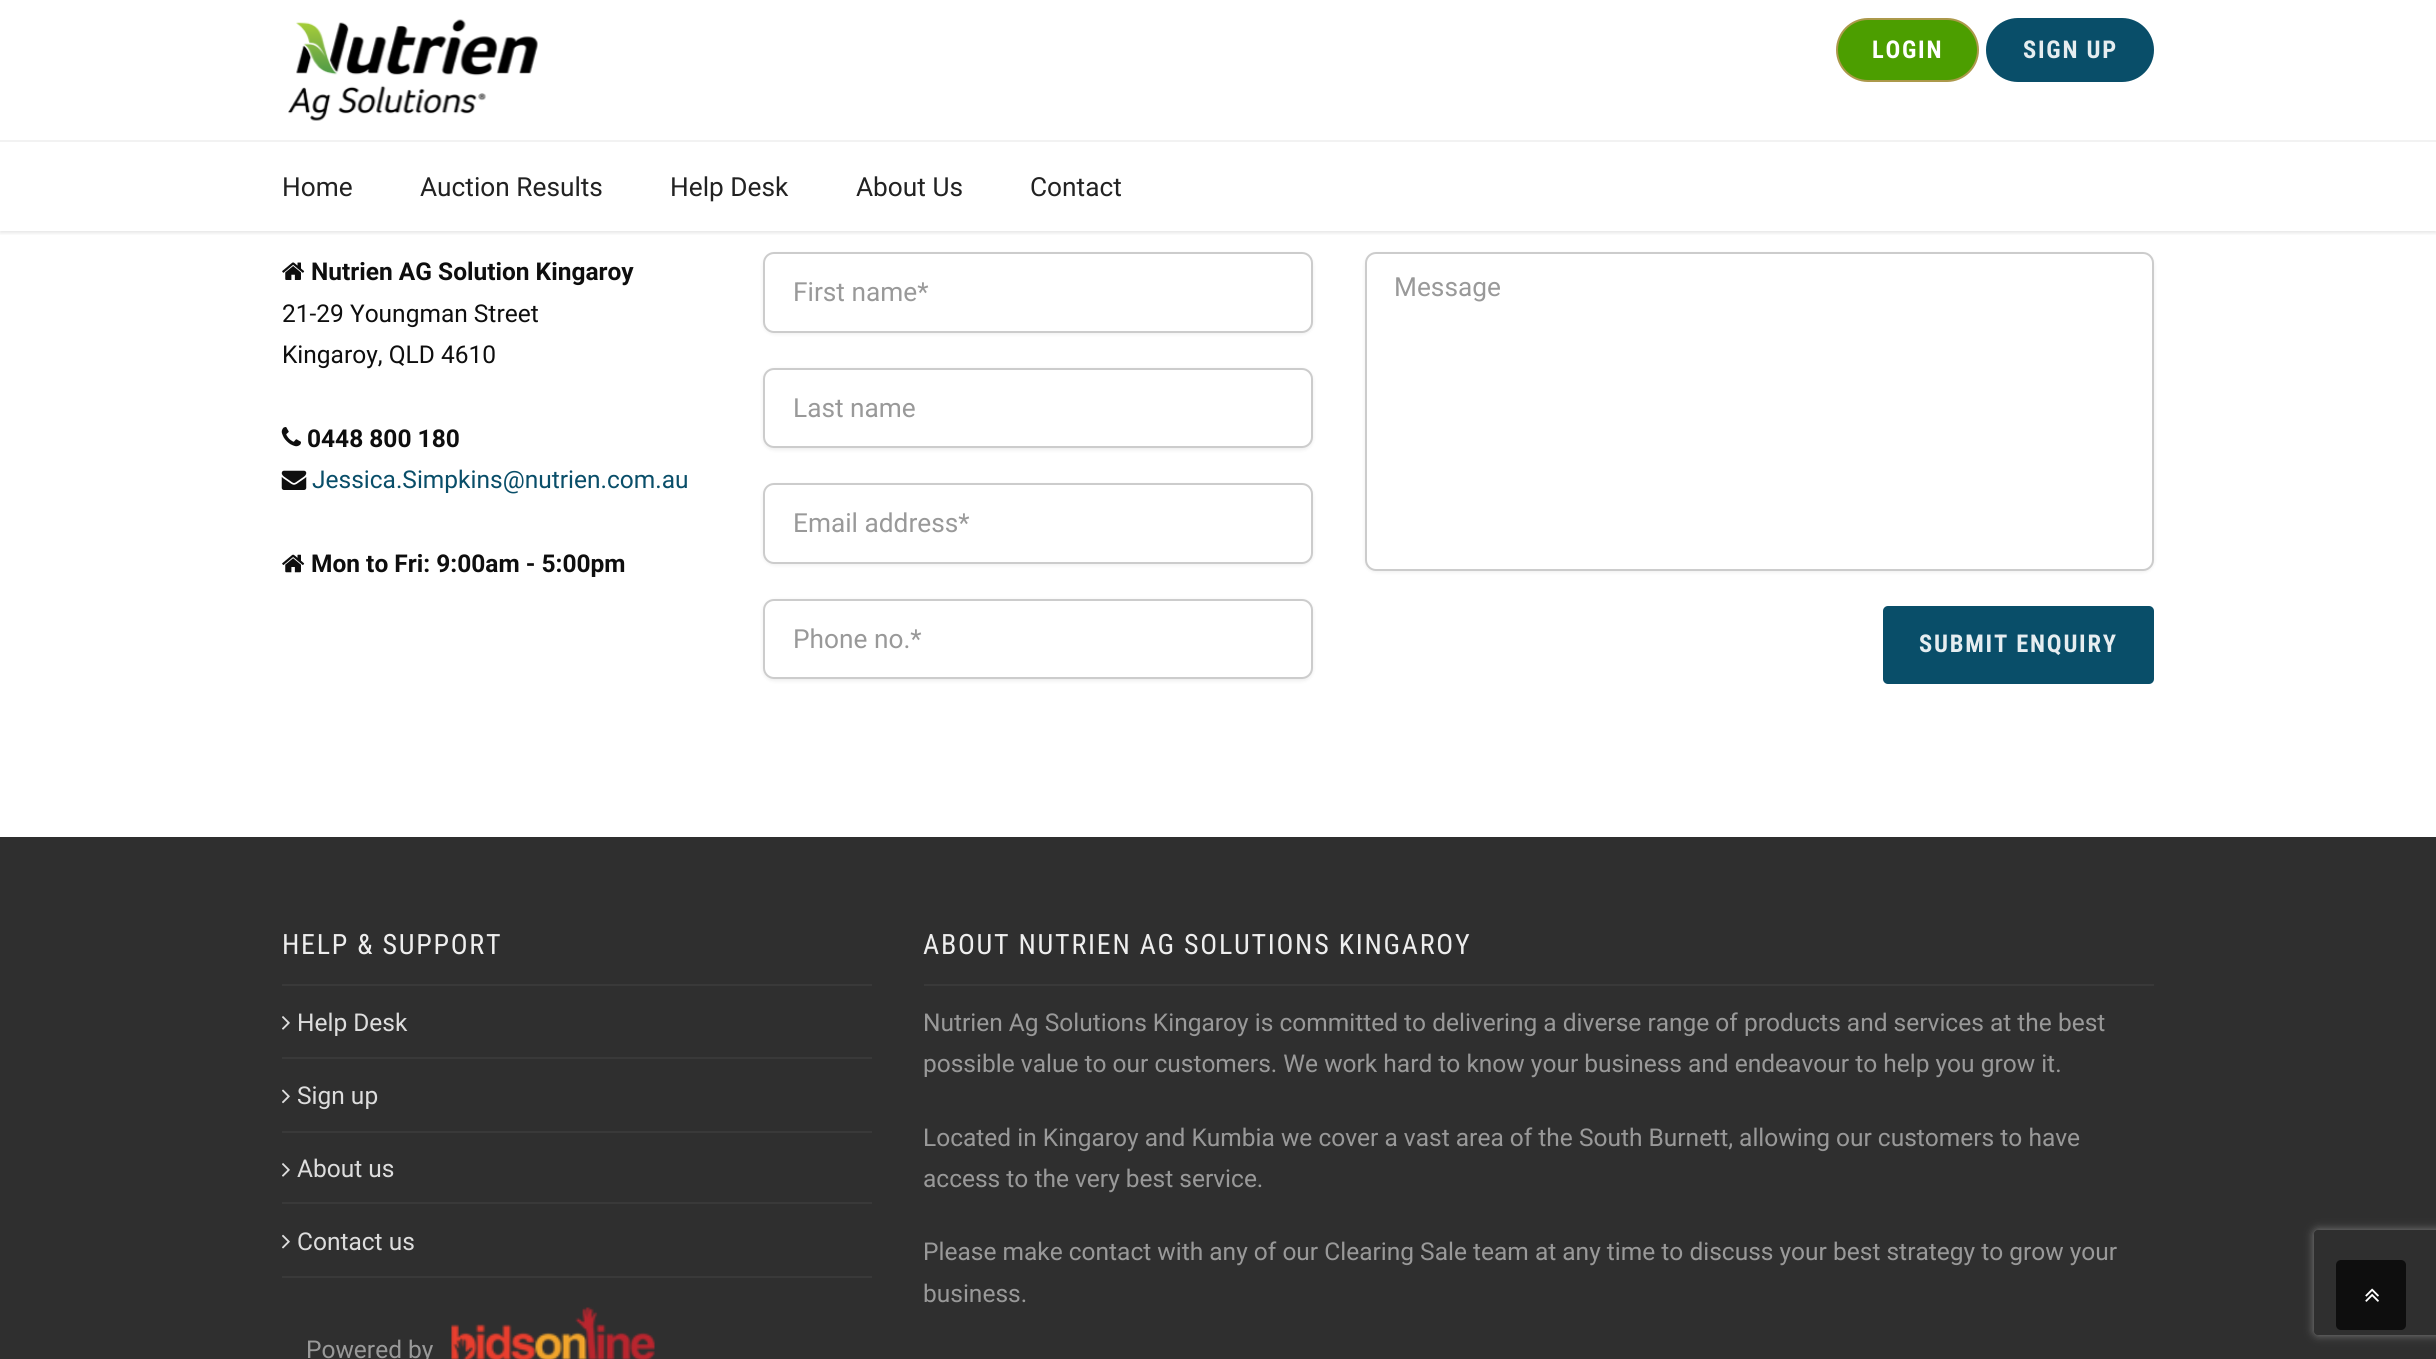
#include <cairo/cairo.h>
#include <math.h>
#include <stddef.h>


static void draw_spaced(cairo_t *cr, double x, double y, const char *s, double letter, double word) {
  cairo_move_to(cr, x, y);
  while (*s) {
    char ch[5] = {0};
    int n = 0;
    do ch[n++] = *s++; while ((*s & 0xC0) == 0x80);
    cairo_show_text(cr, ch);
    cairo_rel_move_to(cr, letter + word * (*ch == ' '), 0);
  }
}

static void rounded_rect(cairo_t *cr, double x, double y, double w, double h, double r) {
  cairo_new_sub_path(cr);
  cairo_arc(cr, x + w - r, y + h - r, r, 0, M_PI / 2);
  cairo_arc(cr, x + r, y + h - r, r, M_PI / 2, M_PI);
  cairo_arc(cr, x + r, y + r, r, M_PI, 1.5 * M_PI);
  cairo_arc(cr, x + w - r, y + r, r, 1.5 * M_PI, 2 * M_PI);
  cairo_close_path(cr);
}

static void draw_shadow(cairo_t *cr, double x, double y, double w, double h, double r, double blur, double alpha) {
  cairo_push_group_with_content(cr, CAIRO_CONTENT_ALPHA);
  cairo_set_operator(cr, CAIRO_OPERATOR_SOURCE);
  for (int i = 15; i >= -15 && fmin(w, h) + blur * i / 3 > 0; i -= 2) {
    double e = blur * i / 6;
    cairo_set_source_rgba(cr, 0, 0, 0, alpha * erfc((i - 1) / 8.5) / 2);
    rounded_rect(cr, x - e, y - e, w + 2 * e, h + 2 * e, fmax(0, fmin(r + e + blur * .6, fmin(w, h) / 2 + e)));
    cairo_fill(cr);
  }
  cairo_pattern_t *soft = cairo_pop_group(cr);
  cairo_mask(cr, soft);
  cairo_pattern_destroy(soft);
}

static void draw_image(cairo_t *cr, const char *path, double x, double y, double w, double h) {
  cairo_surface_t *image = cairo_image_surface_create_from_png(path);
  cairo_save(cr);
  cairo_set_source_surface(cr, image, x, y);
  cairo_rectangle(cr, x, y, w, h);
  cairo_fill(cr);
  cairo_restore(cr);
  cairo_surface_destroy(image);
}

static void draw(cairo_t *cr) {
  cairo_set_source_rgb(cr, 1, 1, 1);
  cairo_paint(cr);
  cairo_save(cr);
  cairo_rectangle(cr, 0, 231, 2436, 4);
  cairo_clip(cr);
  cairo_set_source_rgb(cr, 0, 0, 0);
  draw_shadow(cr, 0, 142, 2436, 91, 0, 2, 0.1);
  cairo_restore(cr);
  cairo_set_source_rgb(cr, 242 / 255.0, 242 / 255.0, 242 / 255.0);
  cairo_rectangle(cr, 0, 140, 2436, 2);
  cairo_fill(cr);
  cairo_set_source_rgb(cr, 1, 1, 1);
  cairo_rectangle(cr, 4, 139, 2428, 1);
  cairo_fill(cr);
  draw_image(cr, "images/1.png", 288, 19, 250, 102);
  cairo_set_source_rgb(cr, 76 / 255.0, 158 / 255.0, 0);
  rounded_rect(cr, 1837, 19, 141, 62, 31);
  cairo_fill_preserve(cr);
  cairo_set_source_rgb(cr, 172 / 255.0, 153 / 255.0, 75 / 255.0);
  cairo_stroke(cr);
  cairo_set_source_rgb(cr, 9 / 255.0, 78 / 255.0, 105 / 255.0);
  rounded_rect(cr, 1986, 18, 168, 64, 32);
  cairo_fill(cr);
  draw_image(cr, "images/2.png", 282, 262, 23, 18);
  draw_image(cr, "images/3.png", 281, 427, 20, 20);
  draw_image(cr, "images/4.png", 281, 470, 26, 20);
  draw_image(cr, "images/5.png", 282, 554, 23, 19);
  cairo_set_source_rgb(cr, 0, 0, 0);
  draw_shadow(cr, 763, 254, 550, 80, 11, 2, 0.07);
  cairo_set_source_rgb(cr, 1, 1, 1);
  rounded_rect(cr, 764, 253, 548, 79, 10);
  cairo_fill_preserve(cr);
  cairo_set_source_rgb(cr, 204 / 255.0, 204 / 255.0, 204 / 255.0);
  cairo_stroke(cr);
  cairo_set_source_rgb(cr, 0, 0, 0);
  draw_shadow(cr, 763, 369, 550, 81, 11, 2, 0.07);
  cairo_set_source_rgb(cr, 1, 1, 1);
  rounded_rect(cr, 764, 369, 548, 78, 10);
  cairo_fill_preserve(cr);
  cairo_set_source_rgb(cr, 204 / 255.0, 204 / 255.0, 204 / 255.0);
  cairo_stroke(cr);
  cairo_set_source_rgb(cr, 0, 0, 0);
  draw_shadow(cr, 763, 485, 550, 80, 11, 2, 0.07);
  cairo_set_source_rgb(cr, 1, 1, 1);
  rounded_rect(cr, 764, 484, 548, 79, 10);
  cairo_fill_preserve(cr);
  cairo_set_source_rgb(cr, 204 / 255.0, 204 / 255.0, 204 / 255.0);
  cairo_stroke(cr);
  cairo_set_source_rgb(cr, 0, 0, 0);
  draw_shadow(cr, 763, 600, 550, 81, 11, 2, 0.07);
  cairo_set_source_rgb(cr, 1, 1, 1);
  rounded_rect(cr, 764, 600, 548, 78, 10);
  cairo_fill_preserve(cr);
  cairo_set_source_rgb(cr, 204 / 255.0, 204 / 255.0, 204 / 255.0);
  cairo_stroke(cr);
  cairo_set_source_rgb(cr, 0, 0, 0);
  draw_shadow(cr, 1365, 254, 789, 318, 11, 2, 0.07);
  cairo_set_source_rgb(cr, 1, 1, 1);
  rounded_rect(cr, 1366, 253, 787, 317, 10);
  cairo_fill_preserve(cr);
  cairo_set_source_rgb(cr, 204 / 255.0, 204 / 255.0, 204 / 255.0);
  cairo_stroke(cr);
  cairo_set_source_rgb(cr, 9 / 255.0, 78 / 255.0, 105 / 255.0);
  rounded_rect(cr, 1883, 606, 271, 78, 5);
  cairo_fill(cr);
  cairo_set_source_rgb(cr, 47 / 255.0, 47 / 255.0, 47 / 255.0);
  cairo_rectangle(cr, 0, 837, 2436, 522);
  cairo_fill(cr);
  cairo_save(cr);
  cairo_set_fill_rule(cr, CAIRO_FILL_RULE_EVEN_ODD);
  cairo_new_path(cr);
  cairo_move_to(cr, 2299, 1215);
  cairo_line_to(cr, 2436, 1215);
  cairo_line_to(cr, 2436, 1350);
  cairo_line_to(cr, 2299, 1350);
  cairo_close_path(cr);
  cairo_move_to(cr, 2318, 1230);
  cairo_line_to(cr, 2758, 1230);
  cairo_curve_to(cr, 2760, 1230, 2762, 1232, 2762, 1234);
  cairo_line_to(cr, 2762, 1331);
  cairo_curve_to(cr, 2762, 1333, 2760, 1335, 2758, 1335);
  cairo_line_to(cr, 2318, 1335);
  cairo_curve_to(cr, 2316, 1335, 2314, 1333, 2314, 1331);
  cairo_line_to(cr, 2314, 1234);
  cairo_curve_to(cr, 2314, 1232, 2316, 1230, 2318, 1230);
  cairo_close_path(cr);
  cairo_clip(cr);
  cairo_set_source_rgb(cr, 128 / 255.0, 128 / 255.0, 128 / 255.0);
  draw_shadow(cr, 2314, 1230, 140, 105, 4, 4.5, 1);
  cairo_restore(cr);
  cairo_set_source_rgb(cr, 57 / 255.0, 57 / 255.0, 57 / 255.0);
  cairo_rectangle(cr, 282, 984, 590, 2);
  cairo_fill(cr);
  cairo_rectangle(cr, 282, 1057, 590, 2);
  cairo_fill(cr);
  draw_image(cr, "images/6.png", 282, 1016, 8, 14);
  cairo_rectangle(cr, 282, 1131, 590, 2);
  cairo_fill(cr);
  draw_image(cr, "images/7.png", 282, 1089, 8, 15);
  cairo_rectangle(cr, 282, 1202, 590, 2);
  cairo_fill(cr);
  draw_image(cr, "images/6.png", 282, 1163, 8, 14);
  cairo_rectangle(cr, 282, 1276, 590, 2);
  cairo_fill(cr);
  draw_image(cr, "images/8.png", 282, 1234, 8, 15);
  draw_image(cr, "images/9.png", 451, 1307, 204, 52);
  cairo_rectangle(cr, 924, 984, 1230, 2);
  cairo_fill(cr);
  cairo_set_source_rgb(cr, 14 / 255.0, 14 / 255.0, 14 / 255.0);
  rounded_rect(cr, 2336, 1260, 70, 70, 5);
  cairo_fill(cr);
  draw_image(cr, "images/10.png", 2365, 1288, 14, 14);
  cairo_select_font_face(cr, "Roboto Condensed", CAIRO_FONT_SLANT_NORMAL, CAIRO_FONT_WEIGHT_BOLD);
  cairo_set_font_size(cr, 24.5);
  cairo_set_source_rgb(cr, 1, 1, 1);
  draw_spaced(cr, 1872, 58, "LOGIN", 1.75, 0);
  cairo_set_source_rgb(cr, 230 / 255.0, 237 / 255.0, 240 / 255.0);
  draw_spaced(cr, 2023, 58, "SIGN UP", 1.75, 0);
  cairo_select_font_face(cr, "Roboto", CAIRO_FONT_SLANT_NORMAL, CAIRO_FONT_WEIGHT_NORMAL);
  cairo_set_font_size(cr, 26.25);
  cairo_set_source_rgb(cr, 34 / 255.0, 34 / 255.0, 34 / 255.0);
  cairo_move_to(cr, 282, 196);
  cairo_show_text(cr, "Home");
  cairo_move_to(cr, 420, 196);
  cairo_show_text(cr, "Auction Results");
  cairo_move_to(cr, 670, 196);
  cairo_show_text(cr, "Help Desk");
  cairo_move_to(cr, 856, 196);
  cairo_show_text(cr, "About Us");
  cairo_move_to(cr, 1030, 196);
  cairo_show_text(cr, "Contact");
  cairo_select_font_face(cr, "Roboto", CAIRO_FONT_SLANT_NORMAL, CAIRO_FONT_WEIGHT_BOLD);
  cairo_set_font_size(cr, 24.5);
  cairo_set_source_rgb(cr, 14 / 255.0, 14 / 255.0, 14 / 255.0);
  cairo_move_to(cr, 311, 280);
  cairo_show_text(cr, "Nutrien AG Solution Kingaroy");
  cairo_select_font_face(cr, "Roboto", CAIRO_FONT_SLANT_NORMAL, CAIRO_FONT_WEIGHT_NORMAL);
  cairo_move_to(cr, 282, 322);
  cairo_show_text(cr, "21-29 Youngman Street");
  cairo_move_to(cr, 282, 363);
  cairo_show_text(cr, "Kingaroy, QLD 4610");
  cairo_select_font_face(cr, "Roboto", CAIRO_FONT_SLANT_NORMAL, CAIRO_FONT_WEIGHT_BOLD);
  cairo_move_to(cr, 307, 447);
  cairo_show_text(cr, "0448 800 180");
  cairo_select_font_face(cr, "Roboto", CAIRO_FONT_SLANT_NORMAL, CAIRO_FONT_WEIGHT_NORMAL);
  cairo_set_source_rgb(cr, 9 / 255.0, 78 / 255.0, 105 / 255.0);
  cairo_move_to(cr, 312, 488);
  cairo_show_text(cr, "Jessica.Simpkins@nutrien.com.au");
  cairo_select_font_face(cr, "Roboto", CAIRO_FONT_SLANT_NORMAL, CAIRO_FONT_WEIGHT_BOLD);
  cairo_set_source_rgb(cr, 14 / 255.0, 14 / 255.0, 14 / 255.0);
  cairo_move_to(cr, 311, 572);
  cairo_show_text(cr, "Mon to Fri: 9:00am - 5:00pm");
  cairo_select_font_face(cr, "Roboto", CAIRO_FONT_SLANT_NORMAL, CAIRO_FONT_WEIGHT_NORMAL);
  cairo_set_font_size(cr, 26.25);
  cairo_set_source_rgb(cr, 153 / 255.0, 153 / 255.0, 153 / 255.0);
  cairo_move_to(cr, 793, 301);
  cairo_show_text(cr, "First name*");
  cairo_move_to(cr, 793, 417);
  cairo_show_text(cr, "Last name");
  cairo_move_to(cr, 793, 532);
  cairo_show_text(cr, "Email address*");
  cairo_move_to(cr, 793, 648);
  cairo_show_text(cr, "Phone no.*");
  cairo_move_to(cr, 1394, 296);
  cairo_show_text(cr, "Message");
  cairo_select_font_face(cr, "Roboto Condensed", CAIRO_FONT_SLANT_NORMAL, CAIRO_FONT_WEIGHT_BOLD);
  cairo_set_font_size(cr, 24.5);
  cairo_set_source_rgb(cr, 230 / 255.0, 237 / 255.0, 240 / 255.0);
  draw_spaced(cr, 1919, 652, "SUBMIT ENQUIRY", 1.75, 0);
  cairo_select_font_face(cr, "Roboto Condensed", CAIRO_FONT_SLANT_NORMAL, CAIRO_FONT_WEIGHT_NORMAL);
  cairo_set_font_size(cr, 28);
  cairo_set_source_rgb(cr, 238 / 255.0, 238 / 255.0, 238 / 255.0);
  draw_spaced(cr, 282, 954, "HELP & SUPPORT", 1.75, 0);
  cairo_select_font_face(cr, "Roboto", CAIRO_FONT_SLANT_NORMAL, CAIRO_FONT_WEIGHT_NORMAL);
  cairo_set_font_size(cr, 24.5);
  cairo_set_source_rgb(cr, 221 / 255.0, 221 / 255.0, 221 / 255.0);
  cairo_move_to(cr, 297, 1031);
  cairo_show_text(cr, "Help Desk");
  cairo_move_to(cr, 297, 1104);
  cairo_show_text(cr, "Sign up");
  cairo_move_to(cr, 297, 1177);
  cairo_show_text(cr, "About us");
  cairo_move_to(cr, 297, 1250);
  cairo_show_text(cr, "Contact us");
  cairo_set_source_rgb(cr, 153 / 255.0, 153 / 255.0, 153 / 255.0);
  cairo_move_to(cr, 306, 1358);
  cairo_show_text(cr, "Powered by");
  cairo_select_font_face(cr, "Roboto Condensed", CAIRO_FONT_SLANT_NORMAL, CAIRO_FONT_WEIGHT_NORMAL);
  cairo_set_font_size(cr, 28);
  cairo_set_source_rgb(cr, 238 / 255.0, 238 / 255.0, 238 / 255.0);
  draw_spaced(cr, 923, 954, "ABOUT NUTRIEN AG SOLUTIONS KINGAROY", 1.75, 0);
  cairo_select_font_face(cr, "Roboto", CAIRO_FONT_SLANT_NORMAL, CAIRO_FONT_WEIGHT_NORMAL);
  cairo_set_font_size(cr, 24.5);
  cairo_set_source_rgb(cr, 153 / 255.0, 153 / 255.0, 153 / 255.0);
  cairo_move_to(cr, 923, 1031);
  cairo_show_text(cr, "Nutrien Ag Solutions Kingaroy is committed to delivering a diverse range of products and services at the best");
  cairo_move_to(cr, 923, 1072);
  cairo_show_text(cr, "possible value to our customers. We work hard to know your business and endeavour to help you grow it.");
  cairo_move_to(cr, 923, 1146);
  cairo_show_text(cr, "Located in Kingaroy and Kumbia we cover a vast area of the South Burnett, allowing our customers to have");
  cairo_move_to(cr, 923, 1187);
  cairo_show_text(cr, "access to the very best service.");
  cairo_move_to(cr, 923, 1260);
  cairo_show_text(cr, "Please make contact with any of our Clearing Sale team at any time to discuss your best strategy to grow your");
  cairo_move_to(cr, 923, 1302);
  cairo_show_text(cr, "business.");
}

int main(void) {
  cairo_surface_t *surface = cairo_image_surface_create(CAIRO_FORMAT_RGB24, 2436, 1359);
  cairo_t *cr = cairo_create(surface);
  cairo_font_options_t *options = cairo_font_options_create();
  cairo_font_options_set_hint_metrics(options, CAIRO_HINT_METRICS_OFF);
  cairo_font_options_set_hint_style(options, CAIRO_HINT_STYLE_NONE);
  cairo_set_font_options(cr, options);
  cairo_set_miter_limit(cr, 4);
  draw(cr);
  cairo_surface_write_to_png(surface, "out.png");
  cairo_font_options_destroy(options);
  cairo_destroy(cr);
  cairo_surface_destroy(surface);
  return 0;
}
